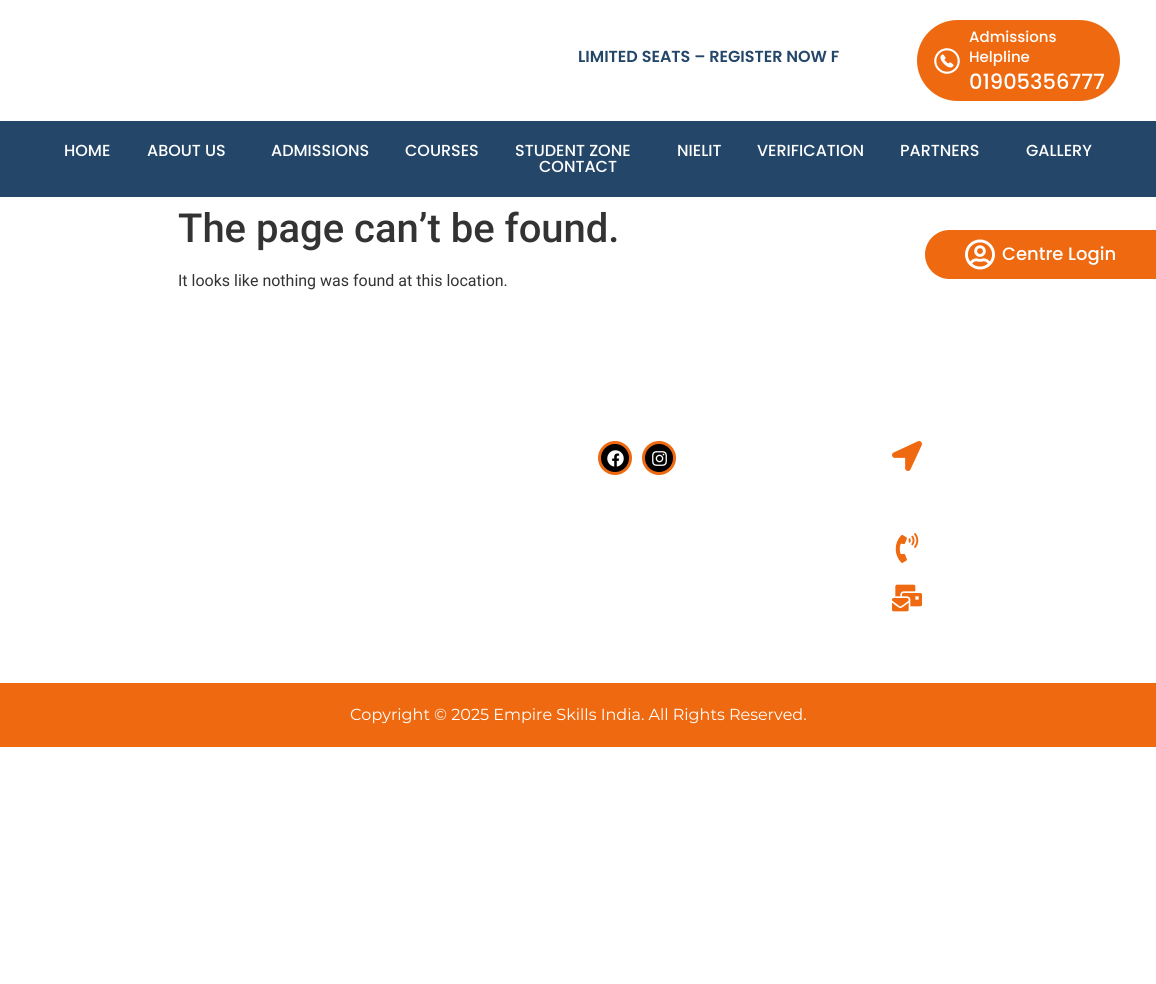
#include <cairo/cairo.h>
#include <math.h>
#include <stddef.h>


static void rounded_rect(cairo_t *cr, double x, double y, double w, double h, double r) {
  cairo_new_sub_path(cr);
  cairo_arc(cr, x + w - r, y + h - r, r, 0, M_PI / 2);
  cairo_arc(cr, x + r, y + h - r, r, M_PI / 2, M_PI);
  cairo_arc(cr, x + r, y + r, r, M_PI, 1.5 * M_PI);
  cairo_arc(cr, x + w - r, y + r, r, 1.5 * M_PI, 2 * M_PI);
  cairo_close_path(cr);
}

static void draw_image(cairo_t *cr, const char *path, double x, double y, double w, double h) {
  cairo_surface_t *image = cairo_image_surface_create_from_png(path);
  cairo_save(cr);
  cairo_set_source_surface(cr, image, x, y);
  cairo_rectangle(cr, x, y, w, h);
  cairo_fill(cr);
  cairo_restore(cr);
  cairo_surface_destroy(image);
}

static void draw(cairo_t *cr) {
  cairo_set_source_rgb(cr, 1, 1, 1);
  cairo_paint(cr);
  cairo_set_source_rgb(cr, 238 / 255.0, 105 / 255.0, 15 / 255.0);
  rounded_rect(cr, 917, 20, 203, 81, 40.5);
  cairo_fill(cr);
  draw_image(cr, "images/1.png", 934, 48, 26, 26);
  cairo_set_source_rgb(cr, 36 / 255.0, 70 / 255.0, 105 / 255.0);
  cairo_rectangle(cr, 0, 121, 1156, 76);
  cairo_fill(cr);
  cairo_set_source_rgb(cr, 238 / 255.0, 105 / 255.0, 15 / 255.0);
  cairo_new_path(cr);
  cairo_move_to(cr, 949.5, 230);
  cairo_line_to(cr, 1156, 230);
  cairo_line_to(cr, 1156, 279);
  cairo_line_to(cr, 949.5, 279);
  cairo_curve_to(cr, 936, 279, 925, 268, 925, 254.5);
  cairo_curve_to(cr, 925, 241, 936, 230, 949.5, 230);
  cairo_close_path(cr);
  cairo_fill(cr);
  draw_image(cr, "images/2.png", 965, 239, 30, 31);
  cairo_set_source_rgb(cr, 0, 0, 0);
  cairo_arc(cr, 615, 458, 15.5, 0, 2 * M_PI);
  cairo_fill_preserve(cr);
  cairo_set_source_rgb(cr, 238 / 255.0, 105 / 255.0, 15 / 255.0);
  cairo_set_line_width(cr, 3);
  cairo_stroke(cr);
  draw_image(cr, "images/3.png", 607, 450, 17, 17);
  cairo_set_source_rgb(cr, 0, 0, 0);
  cairo_arc(cr, 659, 458, 15.5, 0, 2 * M_PI);
  cairo_fill_preserve(cr);
  cairo_set_source_rgb(cr, 238 / 255.0, 105 / 255.0, 15 / 255.0);
  cairo_stroke(cr);
  draw_image(cr, "images/4.png", 652, 451, 15, 15);
  draw_image(cr, "images/5.png", 892, 441, 30, 30);
  draw_image(cr, "images/6.png", 895, 533, 24, 30);
  draw_image(cr, "images/7.png", 892, 584, 30, 28);
  cairo_rectangle(cr, 0, 683, 1156, 64);
  cairo_fill(cr);
  cairo_select_font_face(cr, "Poppins SemiBold", CAIRO_FONT_SLANT_NORMAL, CAIRO_FONT_WEIGHT_NORMAL);
  cairo_set_font_size(cr, 16);
  cairo_set_source_rgb(cr, 36 / 255.0, 70 / 255.0, 105 / 255.0);
  cairo_move_to(cr, 578, 62);
  cairo_show_text(cr, "LIMITED SEATS – REGISTER NOW F");
  cairo_select_font_face(cr, "Poppins Medium", CAIRO_FONT_SLANT_NORMAL, CAIRO_FONT_WEIGHT_NORMAL);
  cairo_set_font_size(cr, 15);
  cairo_set_source_rgb(cr, 1, 1, 1);
  cairo_move_to(cr, 969, 42);
  cairo_show_text(cr, "Admissions");
  cairo_move_to(cr, 969, 62);
  cairo_show_text(cr, "Helpline");
  cairo_set_font_size(cr, 21);
  cairo_move_to(cr, 969, 89);
  cairo_show_text(cr, "01905356777");
  cairo_set_font_size(cr, 16);
  cairo_move_to(cr, 64, 156);
  cairo_show_text(cr, "HOME");
  cairo_move_to(cr, 147, 156);
  cairo_show_text(cr, "ABOUT US");
  cairo_move_to(cr, 271, 156);
  cairo_show_text(cr, "ADMISSIONS");
  cairo_move_to(cr, 405, 156);
  cairo_show_text(cr, "COURSES");
  cairo_move_to(cr, 515, 156);
  cairo_show_text(cr, "STUDENT ZONE");
  cairo_move_to(cr, 677, 156);
  cairo_show_text(cr, "NIELIT");
  cairo_move_to(cr, 757, 156);
  cairo_show_text(cr, "VERIFICATION");
  cairo_move_to(cr, 900, 156);
  cairo_show_text(cr, "PARTNERS");
  cairo_move_to(cr, 1026, 156);
  cairo_show_text(cr, "GALLERY");
  cairo_move_to(cr, 539, 172);
  cairo_show_text(cr, "CONTACT");
  cairo_set_font_size(cr, 18);
  cairo_move_to(cr, 1002, 260);
  cairo_show_text(cr, "Centre Login");
  cairo_select_font_face(cr, "Roboto Medium", CAIRO_FONT_SLANT_NORMAL, CAIRO_FONT_WEIGHT_NORMAL);
  cairo_set_font_size(cr, 40);
  cairo_set_source_rgb(cr, 51 / 255.0, 51 / 255.0, 51 / 255.0);
  cairo_move_to(cr, 178, 242);
  cairo_show_text(cr, "The page can’t be found.");
  cairo_select_font_face(cr, "Roboto", CAIRO_FONT_SLANT_NORMAL, CAIRO_FONT_WEIGHT_NORMAL);
  cairo_set_font_size(cr, 16);
  cairo_move_to(cr, 178, 286);
  cairo_show_text(cr, "It looks like nothing was found at this location.");
  cairo_select_font_face(cr, "Montserrat", CAIRO_FONT_SLANT_NORMAL, CAIRO_FONT_WEIGHT_NORMAL);
  cairo_set_source_rgb(cr, 1, 1, 1);
  cairo_move_to(cr, 350, 720);
  cairo_show_text(cr, "Copyright © 2025 Empire Skills India. All Rights Reserved.");
}

int main(void) {
  cairo_surface_t *surface = cairo_image_surface_create(CAIRO_FORMAT_RGB24, 1156, 984);
  cairo_t *cr = cairo_create(surface);
  cairo_font_options_t *options = cairo_font_options_create();
  cairo_font_options_set_hint_metrics(options, CAIRO_HINT_METRICS_OFF);
  cairo_font_options_set_hint_style(options, CAIRO_HINT_STYLE_NONE);
  cairo_set_font_options(cr, options);
  cairo_set_miter_limit(cr, 4);
  draw(cr);
  cairo_surface_write_to_png(surface, "out.png");
  cairo_font_options_destroy(options);
  cairo_destroy(cr);
  cairo_surface_destroy(surface);
  return 0;
}
